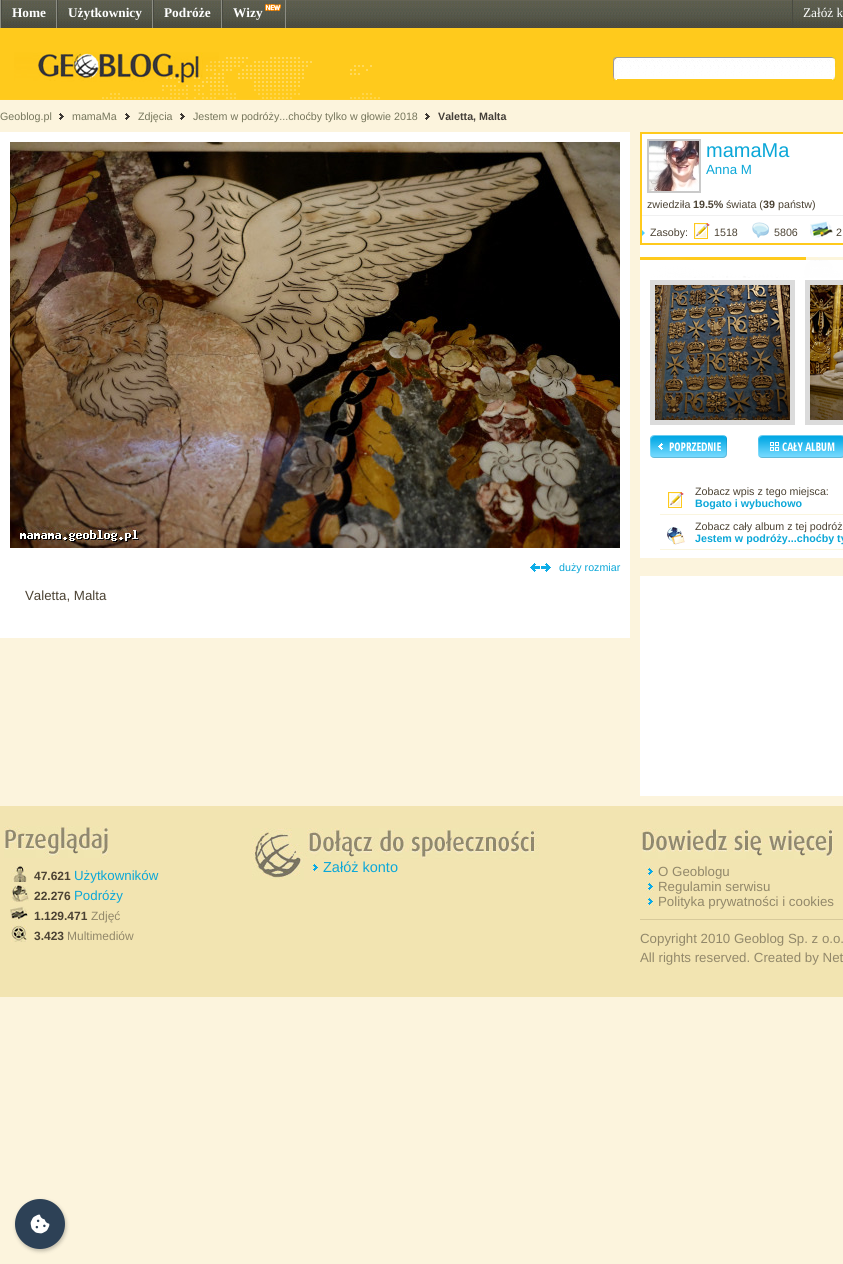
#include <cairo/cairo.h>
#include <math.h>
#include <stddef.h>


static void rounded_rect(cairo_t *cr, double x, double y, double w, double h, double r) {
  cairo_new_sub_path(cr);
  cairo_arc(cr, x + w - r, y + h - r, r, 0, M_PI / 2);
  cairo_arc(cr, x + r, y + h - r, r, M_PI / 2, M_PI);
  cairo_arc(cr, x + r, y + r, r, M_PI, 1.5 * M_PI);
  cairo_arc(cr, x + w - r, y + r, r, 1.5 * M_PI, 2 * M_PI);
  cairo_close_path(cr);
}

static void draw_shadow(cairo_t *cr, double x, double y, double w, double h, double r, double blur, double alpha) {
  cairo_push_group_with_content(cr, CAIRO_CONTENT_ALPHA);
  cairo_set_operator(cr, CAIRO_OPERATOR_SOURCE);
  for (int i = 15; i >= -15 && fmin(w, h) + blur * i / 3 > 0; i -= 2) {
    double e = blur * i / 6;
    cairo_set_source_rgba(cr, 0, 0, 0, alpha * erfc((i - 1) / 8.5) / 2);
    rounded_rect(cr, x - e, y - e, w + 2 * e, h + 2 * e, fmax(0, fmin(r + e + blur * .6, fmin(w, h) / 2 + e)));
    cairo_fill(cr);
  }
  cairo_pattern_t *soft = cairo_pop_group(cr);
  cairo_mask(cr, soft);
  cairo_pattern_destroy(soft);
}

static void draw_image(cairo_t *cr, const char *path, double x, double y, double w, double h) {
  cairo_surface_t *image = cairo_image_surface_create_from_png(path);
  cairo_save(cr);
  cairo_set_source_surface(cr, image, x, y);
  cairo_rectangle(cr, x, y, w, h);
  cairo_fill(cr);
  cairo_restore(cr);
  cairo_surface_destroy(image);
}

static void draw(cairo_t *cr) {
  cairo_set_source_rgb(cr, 252 / 255.0, 244 / 255.0, 221 / 255.0);
  cairo_paint(cr);
  draw_image(cr, "images/1.png", 2, 0, 841, 28);
  cairo_set_source_rgb(cr, 140 / 255.0, 141 / 255.0, 131 / 255.0);
  cairo_rectangle(cr, 0, 0, 1, 28);
  cairo_fill(cr);
  cairo_rectangle(cr, 56, 0, 1, 28);
  cairo_fill(cr);
  cairo_set_source_rgb(cr, 73 / 255.0, 74 / 255.0, 65 / 255.0);
  cairo_rectangle(cr, 1, 0, 1, 28);
  cairo_fill(cr);
  cairo_set_source_rgb(cr, 140 / 255.0, 141 / 255.0, 131 / 255.0);
  cairo_rectangle(cr, 152, 0, 1, 28);
  cairo_fill(cr);
  cairo_set_source_rgb(cr, 73 / 255.0, 74 / 255.0, 65 / 255.0);
  cairo_rectangle(cr, 57, 0, 1, 28);
  cairo_fill(cr);
  cairo_set_source_rgb(cr, 140 / 255.0, 141 / 255.0, 131 / 255.0);
  cairo_rectangle(cr, 221, 0, 1, 28);
  cairo_fill(cr);
  cairo_set_source_rgb(cr, 73 / 255.0, 74 / 255.0, 65 / 255.0);
  cairo_rectangle(cr, 153, 0, 1, 28);
  cairo_fill(cr);
  cairo_set_source_rgb(cr, 140 / 255.0, 141 / 255.0, 131 / 255.0);
  cairo_rectangle(cr, 285, 0, 1, 28);
  cairo_fill(cr);
  cairo_set_source_rgb(cr, 73 / 255.0, 74 / 255.0, 65 / 255.0);
  cairo_rectangle(cr, 222, 0, 1, 28);
  cairo_fill(cr);
  draw_image(cr, "images/2.png", 265, 4, 16, 7);
  cairo_rectangle(cr, 792, 0, 1, 28);
  cairo_fill(cr);
  cairo_set_source_rgb(cr, 1, 202 / 255.0, 28 / 255.0);
  cairo_rectangle(cr, 0, 28, 843, 72);
  cairo_fill(cr);
  draw_image(cr, "images/3.png", 0, 52, 380, 48);
  draw_image(cr, "images/4.png", 613, 56, 4, 25);
  cairo_set_source_rgb(cr, 1, 1, 1);
  cairo_rectangle(cr, 617, 78, 215, 1);
  cairo_fill(cr);
  draw_image(cr, "images/5.png", 617, 56, 215, 22);
  draw_image(cr, "images/6.png", 832, 56, 4, 25);
  draw_image(cr, "images/7.png", 59, 113, 5, 7);
  draw_image(cr, "images/7.png", 125, 113, 5, 7);
  draw_image(cr, "images/7.png", 180, 113, 5, 7);
  draw_image(cr, "images/7.png", 425, 113, 5, 7);
  cairo_rectangle(cr, 640, 134, 203, 424);
  cairo_fill(cr);
  cairo_rectangle(cr, 641, 133, 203, 111);
  cairo_set_source_rgb(cr, 1, 202 / 255.0, 28 / 255.0);
  cairo_stroke(cr);
  cairo_set_source_rgb(cr, 240 / 255.0, 240 / 255.0, 240 / 255.0);
  cairo_rectangle(cr, 642, 215, 201, 1);
  cairo_fill(cr);
  cairo_rectangle(cr, 648, 140, 52, 52);
  cairo_set_source_rgb(cr, 202 / 255.0, 202 / 255.0, 202 / 255.0);
  cairo_stroke(cr);
  draw_image(cr, "images/8.png", 649, 141, 50, 50);
  draw_image(cr, "images/9.png", 642, 230, 3, 6);
  draw_image(cr, "images/10.png", 694, 223, 16, 16);
  draw_image(cr, "images/11.png", 752, 222, 17, 16);
  draw_image(cr, "images/12.png", 810, 221, 23, 17);
  draw_image(cr, "images/13.png", 640, 257, 203, 21);
  cairo_rectangle(cr, 652.5, 282.5, 140, 140);
  cairo_set_source_rgb(cr, 219 / 255.0, 219 / 255.0, 219 / 255.0);
  cairo_set_line_width(cr, 5);
  cairo_stroke(cr);
  draw_image(cr, "images/14.png", 655, 285, 135, 135);
  cairo_rectangle(cr, 807.5, 282.5, 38, 140);
  cairo_stroke(cr);
  draw_image(cr, "images/15.png", 810, 285, 33, 135);
  draw_image(cr, "images/16.png", 650, 435, 77, 23);
  draw_image(cr, "images/17.png", 758, 435, 85, 23);
  cairo_set_source_rgb(cr, 250 / 255.0, 245 / 255.0, 223 / 255.0);
  cairo_rectangle(cr, 660, 514, 183, 1);
  cairo_fill(cr);
  draw_image(cr, "images/10.png", 668, 492, 16, 16);
  cairo_rectangle(cr, 660, 549, 183, 1);
  cairo_fill(cr);
  draw_image(cr, "images/18.png", 667, 527, 18, 18);
  cairo_set_source_rgb(cr, 1, 1, 1);
  cairo_rectangle(cr, 640, 576, 203, 220);
  cairo_fill(cr);
  cairo_rectangle(cr, 0, 132, 630, 506);
  cairo_fill(cr);
  draw_image(cr, "images/19.png", 10, 142, 610, 406);
  draw_image(cr, "images/20.png", 530, 563, 21, 9);
  cairo_set_source_rgb(cr, 242 / 255.0, 228 / 255.0, 177 / 255.0);
  cairo_rectangle(cr, 0, 806, 843, 191);
  cairo_fill(cr);
  draw_image(cr, "images/21.png", 252, 828, 52, 52);
  draw_image(cr, "images/22.png", 305, 828, 234, 31);
  draw_image(cr, "images/23.png", 310, 862, 9, 12);
  draw_image(cr, "images/24.png", 4, 826, 104, 32);
  draw_image(cr, "images/25.png", 11, 866, 16, 16);
  draw_image(cr, "images/26.png", 11, 885, 18, 17);
  draw_image(cr, "images/27.png", 10, 906, 19, 16);
  draw_image(cr, "images/28.png", 11, 925, 16, 17);
  draw_image(cr, "images/29.png", 642, 828, 192, 31);
  cairo_set_source_rgb(cr, 215 / 255.0, 201 / 255.0, 154 / 255.0);
  cairo_rectangle(cr, 640, 919, 203, 1);
  cairo_fill(cr);
  draw_image(cr, "images/23.png", 645, 866, 9, 12);
  draw_image(cr, "images/23.png", 645, 881, 9, 12);
  draw_image(cr, "images/23.png", 645, 896, 9, 12);
  cairo_set_source_rgb(cr, 0, 0, 0);
  draw_shadow(cr, 16, 1201, 50, 50, 25, 2, 0.25);
  cairo_set_source_rgb(cr, 45 / 255.0, 65 / 255.0, 86 / 255.0);
  cairo_arc(cr, 40, 1224, 25, 0, 2 * M_PI);
  cairo_fill(cr);
  draw_image(cr, "images/30.png", 30, 1214, 20, 20);
  cairo_select_font_face(cr, "Liberation Serif", CAIRO_FONT_SLANT_NORMAL, CAIRO_FONT_WEIGHT_BOLD);
  cairo_set_font_size(cr, 13.3);
  cairo_set_source_rgb(cr, 1, 1, 1);
  cairo_move_to(cr, 12, 17);
  cairo_show_text(cr, "Home");
  cairo_move_to(cr, 68, 17);
  cairo_show_text(cr, "Użytkownicy");
  cairo_move_to(cr, 164, 17);
  cairo_show_text(cr, "Podróże");
  cairo_move_to(cr, 233, 17);
  cairo_show_text(cr, "Wizy");
  cairo_select_font_face(cr, "Liberation Serif", CAIRO_FONT_SLANT_NORMAL, CAIRO_FONT_WEIGHT_NORMAL);
  cairo_move_to(cr, 803, 17);
  cairo_show_text(cr, "Załóż k");
  cairo_select_font_face(cr, "Liberation Sans", CAIRO_FONT_SLANT_NORMAL, CAIRO_FONT_WEIGHT_NORMAL);
  cairo_set_font_size(cr, 10.7);
  cairo_set_source_rgb(cr, 118 / 255.0, 118 / 255.0, 92 / 255.0);
  cairo_move_to(cr, 0, 120);
  cairo_show_text(cr, "Geoblog.pl");
  cairo_move_to(cr, 72, 120);
  cairo_show_text(cr, "mamaMa");
  cairo_move_to(cr, 138, 120);
  cairo_show_text(cr, "Zdjęcia");
  cairo_move_to(cr, 193, 120);
  cairo_show_text(cr, "Jestem w podróży...choćby tylko w głowie 2018");
  cairo_select_font_face(cr, "Liberation Sans", CAIRO_FONT_SLANT_NORMAL, CAIRO_FONT_WEIGHT_BOLD);
  cairo_set_source_rgb(cr, 68 / 255.0, 63 / 255.0, 57 / 255.0);
  cairo_move_to(cr, 438, 120);
  cairo_show_text(cr, "Valetta, Malta");
  cairo_select_font_face(cr, "Liberation Sans", CAIRO_FONT_SLANT_NORMAL, CAIRO_FONT_WEIGHT_NORMAL);
  cairo_set_font_size(cr, 20);
  cairo_set_source_rgb(cr, 11 / 255.0, 167 / 255.0, 216 / 255.0);
  cairo_move_to(cr, 706, 157);
  cairo_show_text(cr, "mamaMa");
  cairo_set_font_size(cr, 13.3);
  cairo_move_to(cr, 706, 174);
  cairo_show_text(cr, "Anna M");
  cairo_set_font_size(cr, 10.7);
  cairo_set_source_rgb(cr, 75 / 255.0, 66 / 255.0, 51 / 255.0);
  cairo_move_to(cr, 647, 208);
  cairo_show_text(cr, "zwiedziła");
  cairo_select_font_face(cr, "Liberation Sans", CAIRO_FONT_SLANT_NORMAL, CAIRO_FONT_WEIGHT_BOLD);
  cairo_move_to(cr, 693, 208);
  cairo_show_text(cr, "19.5%");
  cairo_select_font_face(cr, "Liberation Sans", CAIRO_FONT_SLANT_NORMAL, CAIRO_FONT_WEIGHT_NORMAL);
  cairo_move_to(cr, 726, 208);
  cairo_show_text(cr, "świata (");
  cairo_select_font_face(cr, "Liberation Sans", CAIRO_FONT_SLANT_NORMAL, CAIRO_FONT_WEIGHT_BOLD);
  cairo_move_to(cr, 763, 208);
  cairo_show_text(cr, "39");
  cairo_select_font_face(cr, "Liberation Sans", CAIRO_FONT_SLANT_NORMAL, CAIRO_FONT_WEIGHT_NORMAL);
  cairo_move_to(cr, 778, 208);
  cairo_show_text(cr, "państw)");
  cairo_move_to(cr, 650, 236);
  cairo_show_text(cr, "Zasoby:");
  cairo_move_to(cr, 714, 236);
  cairo_show_text(cr, "1518");
  cairo_move_to(cr, 774, 236);
  cairo_show_text(cr, "5806");
  cairo_move_to(cr, 836, 236);
  cairo_show_text(cr, "2");
  cairo_move_to(cr, 695, 495);
  cairo_show_text(cr, "Zobacz wpis z tego miejsca:");
  cairo_select_font_face(cr, "Liberation Sans", CAIRO_FONT_SLANT_NORMAL, CAIRO_FONT_WEIGHT_BOLD);
  cairo_set_source_rgb(cr, 11 / 255.0, 167 / 255.0, 216 / 255.0);
  cairo_move_to(cr, 695, 507);
  cairo_show_text(cr, "Bogato i wybuchowo");
  cairo_select_font_face(cr, "Liberation Sans", CAIRO_FONT_SLANT_NORMAL, CAIRO_FONT_WEIGHT_NORMAL);
  cairo_set_source_rgb(cr, 75 / 255.0, 66 / 255.0, 51 / 255.0);
  cairo_move_to(cr, 695, 530);
  cairo_show_text(cr, "Zobacz cały album z tej podróż");
  cairo_select_font_face(cr, "Liberation Sans", CAIRO_FONT_SLANT_NORMAL, CAIRO_FONT_WEIGHT_BOLD);
  cairo_set_source_rgb(cr, 11 / 255.0, 167 / 255.0, 216 / 255.0);
  cairo_move_to(cr, 695, 542);
  cairo_show_text(cr, "Jestem w podróży...choćby ty");
  cairo_select_font_face(cr, "Liberation Sans", CAIRO_FONT_SLANT_NORMAL, CAIRO_FONT_WEIGHT_NORMAL);
  cairo_move_to(cr, 559, 571);
  cairo_show_text(cr, "duży rozmiar");
  cairo_set_font_size(cr, 13.3);
  cairo_set_source_rgb(cr, 75 / 255.0, 66 / 255.0, 51 / 255.0);
  cairo_move_to(cr, 25, 600);
  cairo_show_text(cr, "Valetta, Malta");
  cairo_set_font_size(cr, 14.5);
  cairo_set_source_rgb(cr, 11 / 255.0, 167 / 255.0, 216 / 255.0);
  cairo_move_to(cr, 323, 872);
  cairo_show_text(cr, "Załóż konto");
  cairo_select_font_face(cr, "Liberation Sans", CAIRO_FONT_SLANT_NORMAL, CAIRO_FONT_WEIGHT_BOLD);
  cairo_set_font_size(cr, 12);
  cairo_set_source_rgb(cr, 75 / 255.0, 66 / 255.0, 51 / 255.0);
  cairo_move_to(cr, 34, 880);
  cairo_show_text(cr, "47.621");
  cairo_select_font_face(cr, "Liberation Sans", CAIRO_FONT_SLANT_NORMAL, CAIRO_FONT_WEIGHT_NORMAL);
  cairo_set_font_size(cr, 13.3);
  cairo_set_source_rgb(cr, 11 / 255.0, 167 / 255.0, 216 / 255.0);
  cairo_move_to(cr, 74, 880);
  cairo_show_text(cr, "Użytkowników");
  cairo_select_font_face(cr, "Liberation Sans", CAIRO_FONT_SLANT_NORMAL, CAIRO_FONT_WEIGHT_BOLD);
  cairo_set_font_size(cr, 12);
  cairo_set_source_rgb(cr, 75 / 255.0, 66 / 255.0, 51 / 255.0);
  cairo_move_to(cr, 34, 900);
  cairo_show_text(cr, "22.276");
  cairo_select_font_face(cr, "Liberation Sans", CAIRO_FONT_SLANT_NORMAL, CAIRO_FONT_WEIGHT_NORMAL);
  cairo_set_font_size(cr, 13.3);
  cairo_set_source_rgb(cr, 11 / 255.0, 167 / 255.0, 216 / 255.0);
  cairo_move_to(cr, 74, 900);
  cairo_show_text(cr, "Podróży");
  cairo_select_font_face(cr, "Liberation Sans", CAIRO_FONT_SLANT_NORMAL, CAIRO_FONT_WEIGHT_BOLD);
  cairo_set_font_size(cr, 12);
  cairo_set_source_rgb(cr, 75 / 255.0, 66 / 255.0, 51 / 255.0);
  cairo_move_to(cr, 34, 920);
  cairo_show_text(cr, "1.129.471");
  cairo_select_font_face(cr, "Liberation Sans", CAIRO_FONT_SLANT_NORMAL, CAIRO_FONT_WEIGHT_NORMAL);
  cairo_set_source_rgb(cr, 146 / 255.0, 136 / 255.0, 106 / 255.0);
  cairo_move_to(cr, 91, 920);
  cairo_show_text(cr, "Zdjęć");
  cairo_select_font_face(cr, "Liberation Sans", CAIRO_FONT_SLANT_NORMAL, CAIRO_FONT_WEIGHT_BOLD);
  cairo_set_source_rgb(cr, 75 / 255.0, 66 / 255.0, 51 / 255.0);
  cairo_move_to(cr, 34, 940);
  cairo_show_text(cr, "3.423");
  cairo_select_font_face(cr, "Liberation Sans", CAIRO_FONT_SLANT_NORMAL, CAIRO_FONT_WEIGHT_NORMAL);
  cairo_set_source_rgb(cr, 146 / 255.0, 136 / 255.0, 106 / 255.0);
  cairo_move_to(cr, 67, 940);
  cairo_show_text(cr, "Multimediów");
  cairo_set_font_size(cr, 13.3);
  cairo_move_to(cr, 658, 876);
  cairo_show_text(cr, "O Geoblogu");
  cairo_move_to(cr, 658, 891);
  cairo_show_text(cr, "Regulamin serwisu");
  cairo_move_to(cr, 658, 906);
  cairo_show_text(cr, "Polityka prywatności i cookies");
  cairo_move_to(cr, 640, 943);
  cairo_show_text(cr, "Copyright 2010 Geoblog Sp. z o.o.");
  cairo_move_to(cr, 640, 962);
  cairo_show_text(cr, "All rights reserved. Created by Net");
}

int main(void) {
  cairo_surface_t *surface = cairo_image_surface_create(CAIRO_FORMAT_RGB24, 843, 1264);
  cairo_t *cr = cairo_create(surface);
  cairo_font_options_t *options = cairo_font_options_create();
  cairo_font_options_set_hint_metrics(options, CAIRO_HINT_METRICS_OFF);
  cairo_font_options_set_hint_style(options, CAIRO_HINT_STYLE_NONE);
  cairo_set_font_options(cr, options);
  cairo_set_miter_limit(cr, 4);
  draw(cr);
  cairo_surface_write_to_png(surface, "out.png");
  cairo_font_options_destroy(options);
  cairo_destroy(cr);
  cairo_surface_destroy(surface);
  return 0;
}
